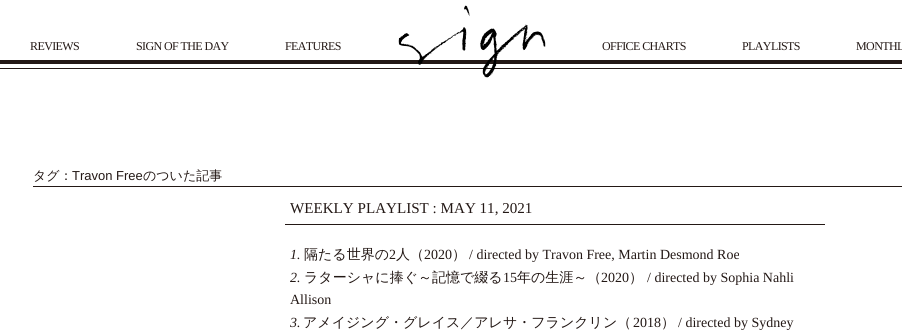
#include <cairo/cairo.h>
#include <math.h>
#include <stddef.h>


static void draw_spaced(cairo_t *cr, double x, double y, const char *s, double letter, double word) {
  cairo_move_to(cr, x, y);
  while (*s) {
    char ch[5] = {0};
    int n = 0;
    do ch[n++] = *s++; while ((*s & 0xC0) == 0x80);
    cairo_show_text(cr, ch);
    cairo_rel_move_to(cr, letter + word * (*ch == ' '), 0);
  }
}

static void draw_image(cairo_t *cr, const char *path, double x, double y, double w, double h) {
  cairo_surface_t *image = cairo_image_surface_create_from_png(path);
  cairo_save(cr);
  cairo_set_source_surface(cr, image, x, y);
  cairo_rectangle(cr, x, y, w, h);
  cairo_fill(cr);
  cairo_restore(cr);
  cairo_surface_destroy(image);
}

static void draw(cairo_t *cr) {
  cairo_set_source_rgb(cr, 1, 1, 1);
  cairo_paint(cr);
  cairo_set_source_rgb(cr, 35 / 255.0, 24 / 255.0, 21 / 255.0);
  cairo_rectangle(cr, 0, 68, 902, 1);
  cairo_fill(cr);
  cairo_rectangle(cr, 0, 60, 902, 4);
  cairo_fill(cr);
  draw_image(cr, "images/1.png", 398, 5, 148, 73);
  cairo_rectangle(cr, 33, 186, 869, 1);
  cairo_fill(cr);
  cairo_rectangle(cr, 285, 224, 540, 1);
  cairo_fill(cr);
  cairo_select_font_face(cr, "Liberation Serif", CAIRO_FONT_SLANT_NORMAL, CAIRO_FONT_WEIGHT_NORMAL);
  cairo_set_font_size(cr, 12);
  draw_spaced(cr, 30, 50, "REVIEWS", -0.6, 0);
  draw_spaced(cr, 136, 50, "SIGN OF THE DAY", -0.6, 0);
  draw_spaced(cr, 285, 50, "FEATURES", -0.6, 0);
  draw_spaced(cr, 602, 50, "OFFICE CHARTS", -0.6, 0);
  draw_spaced(cr, 742, 50, "PLAYLISTS", -0.6, 0);
  draw_spaced(cr, 856, 50, "MONTHL", -0.6, 0);
  cairo_select_font_face(cr, "WenQuanYi Zen Hei Medium", CAIRO_FONT_SLANT_NORMAL, CAIRO_FONT_WEIGHT_NORMAL);
  cairo_set_font_size(cr, 13);
  cairo_move_to(cr, 33, 180);
  cairo_show_text(cr, "タグ：");
  cairo_select_font_face(cr, "Liberation Sans", CAIRO_FONT_SLANT_NORMAL, CAIRO_FONT_WEIGHT_NORMAL);
  cairo_move_to(cr, 72, 180);
  cairo_show_text(cr, "Travon Free");
  cairo_select_font_face(cr, "WenQuanYi Zen Hei Medium", CAIRO_FONT_SLANT_NORMAL, CAIRO_FONT_WEIGHT_NORMAL);
  cairo_move_to(cr, 143, 180);
  cairo_show_text(cr, "のついた記事");
  cairo_select_font_face(cr, "Liberation Serif", CAIRO_FONT_SLANT_NORMAL, CAIRO_FONT_WEIGHT_NORMAL);
  cairo_set_font_size(cr, 15.1);
  cairo_move_to(cr, 290, 213);
  cairo_show_text(cr, "WEEKLY PLAYLIST : MAY 11, 2021");
  cairo_select_font_face(cr, "Liberation Serif", CAIRO_FONT_SLANT_ITALIC, CAIRO_FONT_WEIGHT_NORMAL);
  cairo_set_font_size(cr, 14);
  cairo_move_to(cr, 290, 259);
  cairo_show_text(cr, "1.");
  cairo_select_font_face(cr, "WenQuanYi Zen Hei Medium", CAIRO_FONT_SLANT_NORMAL, CAIRO_FONT_WEIGHT_NORMAL);
  cairo_move_to(cr, 304, 259);
  cairo_show_text(cr, "隔たる世界の");
  cairo_select_font_face(cr, "Liberation Serif", CAIRO_FONT_SLANT_NORMAL, CAIRO_FONT_WEIGHT_NORMAL);
  cairo_move_to(cr, 389, 259);
  cairo_show_text(cr, "2");
  cairo_select_font_face(cr, "WenQuanYi Zen Hei Medium", CAIRO_FONT_SLANT_NORMAL, CAIRO_FONT_WEIGHT_NORMAL);
  cairo_move_to(cr, 396, 259);
  cairo_show_text(cr, "人（");
  cairo_select_font_face(cr, "Liberation Serif", CAIRO_FONT_SLANT_NORMAL, CAIRO_FONT_WEIGHT_NORMAL);
  cairo_move_to(cr, 424, 259);
  cairo_show_text(cr, "2020");
  cairo_select_font_face(cr, "WenQuanYi Zen Hei Medium", CAIRO_FONT_SLANT_NORMAL, CAIRO_FONT_WEIGHT_NORMAL);
  cairo_move_to(cr, 452, 259);
  cairo_show_text(cr, "）");
  cairo_select_font_face(cr, "Liberation Serif", CAIRO_FONT_SLANT_NORMAL, CAIRO_FONT_WEIGHT_NORMAL);
  cairo_move_to(cr, 469, 259);
  cairo_show_text(cr, "/ directed by Travon Free, Martin Desmond Roe");
  cairo_select_font_face(cr, "Liberation Serif", CAIRO_FONT_SLANT_ITALIC, CAIRO_FONT_WEIGHT_NORMAL);
  cairo_move_to(cr, 290, 282);
  cairo_show_text(cr, "2.");
  cairo_select_font_face(cr, "WenQuanYi Zen Hei Medium", CAIRO_FONT_SLANT_NORMAL, CAIRO_FONT_WEIGHT_NORMAL);
  cairo_move_to(cr, 304, 282);
  cairo_show_text(cr, "ラターシャに捧ぐ～記憶で綴る");
  cairo_select_font_face(cr, "Liberation Serif", CAIRO_FONT_SLANT_NORMAL, CAIRO_FONT_WEIGHT_NORMAL);
  cairo_move_to(cr, 503, 282);
  cairo_show_text(cr, "15");
  cairo_select_font_face(cr, "WenQuanYi Zen Hei Medium", CAIRO_FONT_SLANT_NORMAL, CAIRO_FONT_WEIGHT_NORMAL);
  cairo_move_to(cr, 517, 282);
  cairo_show_text(cr, "年の生涯～（");
  cairo_select_font_face(cr, "Liberation Serif", CAIRO_FONT_SLANT_NORMAL, CAIRO_FONT_WEIGHT_NORMAL);
  cairo_move_to(cr, 601, 282);
  cairo_show_text(cr, "2020");
  cairo_select_font_face(cr, "WenQuanYi Zen Hei Medium", CAIRO_FONT_SLANT_NORMAL, CAIRO_FONT_WEIGHT_NORMAL);
  cairo_move_to(cr, 629, 282);
  cairo_show_text(cr, "）");
  cairo_select_font_face(cr, "Liberation Serif", CAIRO_FONT_SLANT_NORMAL, CAIRO_FONT_WEIGHT_NORMAL);
  cairo_move_to(cr, 647, 282);
  cairo_show_text(cr, "/ directed by Sophia Nahli");
  cairo_move_to(cr, 290, 304);
  cairo_show_text(cr, "Allison");
  cairo_select_font_face(cr, "Liberation Serif", CAIRO_FONT_SLANT_ITALIC, CAIRO_FONT_WEIGHT_NORMAL);
  cairo_move_to(cr, 290, 327);
  cairo_show_text(cr, "3.");
  cairo_select_font_face(cr, "WenQuanYi Zen Hei Medium", CAIRO_FONT_SLANT_NORMAL, CAIRO_FONT_WEIGHT_NORMAL);
  cairo_move_to(cr, 303, 327);
  cairo_show_text(cr, "アメイジング・グレイス／アレサ・フランクリン（");
  cairo_select_font_face(cr, "Liberation Serif", CAIRO_FONT_SLANT_NORMAL, CAIRO_FONT_WEIGHT_NORMAL);
  cairo_move_to(cr, 633, 327);
  cairo_show_text(cr, "2018");
  cairo_select_font_face(cr, "WenQuanYi Zen Hei Medium", CAIRO_FONT_SLANT_NORMAL, CAIRO_FONT_WEIGHT_NORMAL);
  cairo_move_to(cr, 661, 327);
  cairo_show_text(cr, "）");
  cairo_select_font_face(cr, "Liberation Serif", CAIRO_FONT_SLANT_NORMAL, CAIRO_FONT_WEIGHT_NORMAL);
  cairo_move_to(cr, 678, 327);
  cairo_show_text(cr, "/ directed by Sydney");
}

int main(void) {
  cairo_surface_t *surface = cairo_image_surface_create(CAIRO_FORMAT_RGB24, 902, 331);
  cairo_t *cr = cairo_create(surface);
  cairo_font_options_t *options = cairo_font_options_create();
  cairo_font_options_set_hint_metrics(options, CAIRO_HINT_METRICS_OFF);
  cairo_font_options_set_hint_style(options, CAIRO_HINT_STYLE_NONE);
  cairo_set_font_options(cr, options);
  cairo_set_miter_limit(cr, 4);
  draw(cr);
  cairo_surface_write_to_png(surface, "out.png");
  cairo_font_options_destroy(options);
  cairo_destroy(cr);
  cairo_surface_destroy(surface);
  return 0;
}
